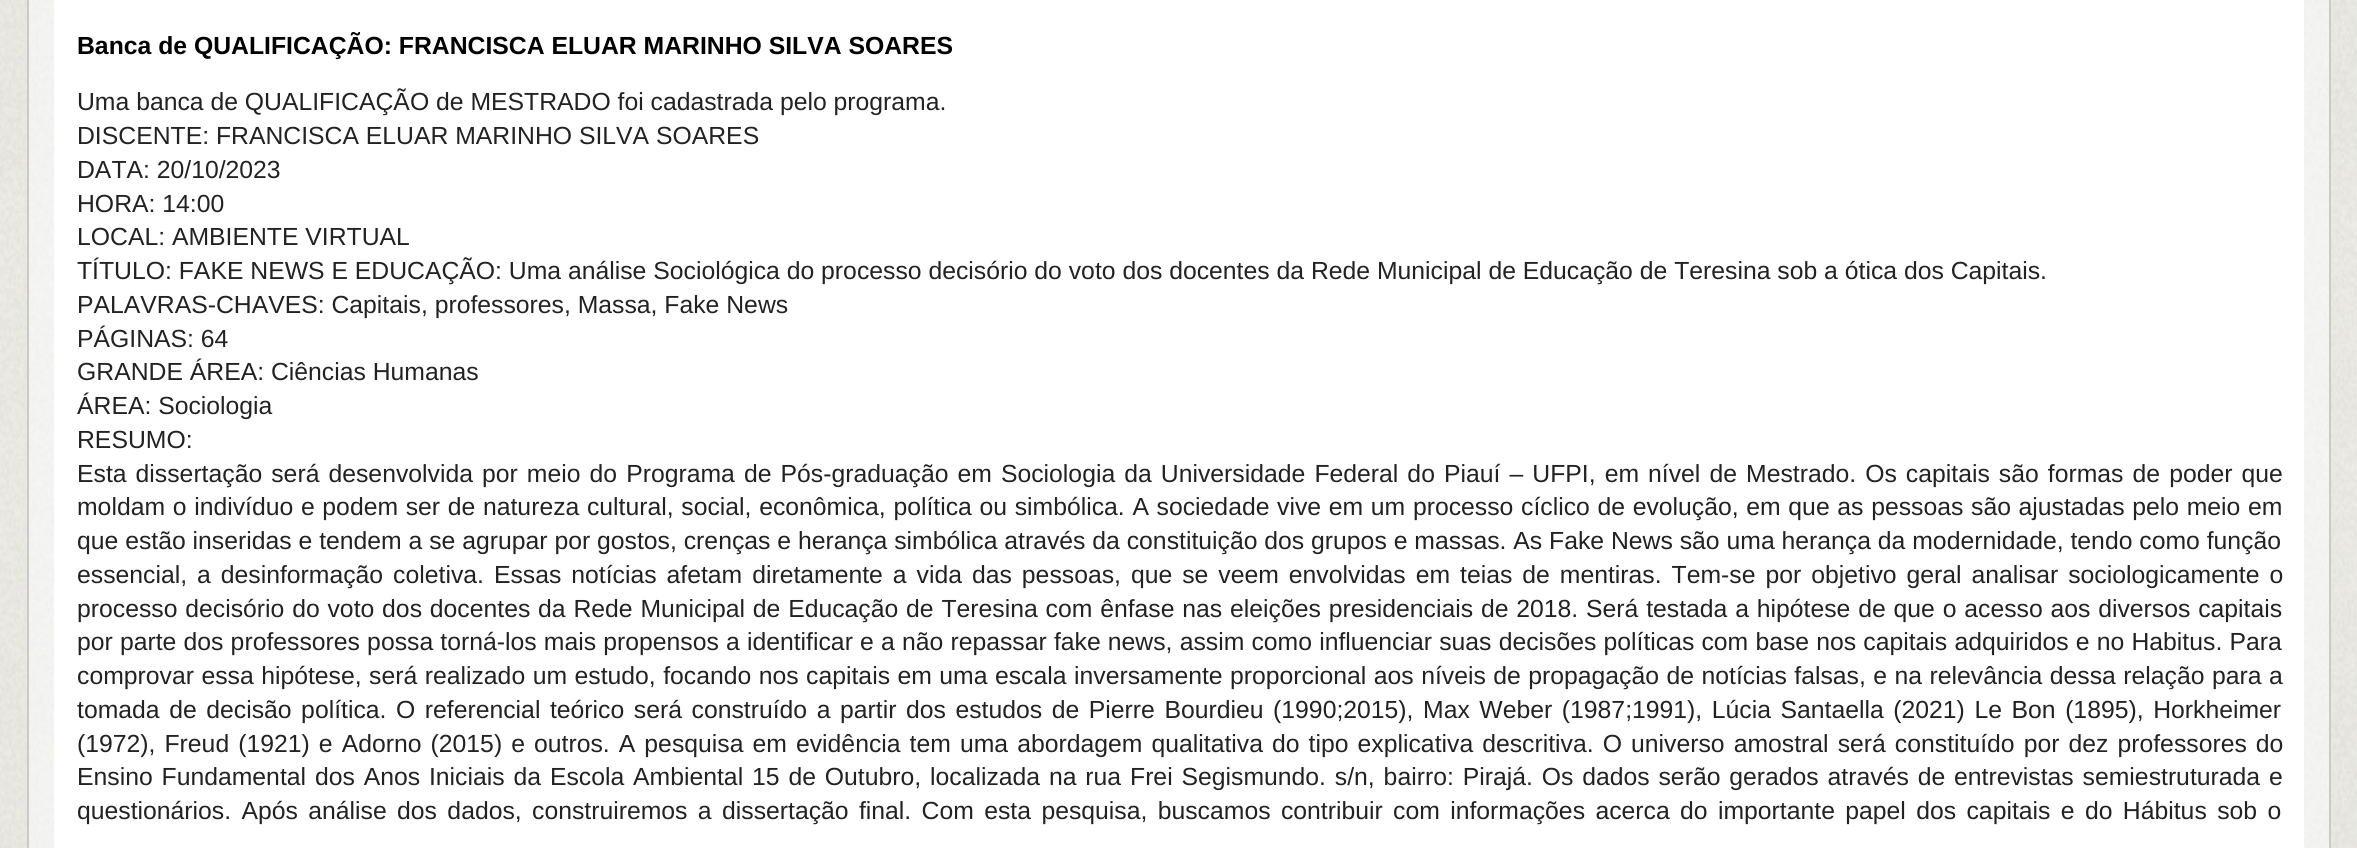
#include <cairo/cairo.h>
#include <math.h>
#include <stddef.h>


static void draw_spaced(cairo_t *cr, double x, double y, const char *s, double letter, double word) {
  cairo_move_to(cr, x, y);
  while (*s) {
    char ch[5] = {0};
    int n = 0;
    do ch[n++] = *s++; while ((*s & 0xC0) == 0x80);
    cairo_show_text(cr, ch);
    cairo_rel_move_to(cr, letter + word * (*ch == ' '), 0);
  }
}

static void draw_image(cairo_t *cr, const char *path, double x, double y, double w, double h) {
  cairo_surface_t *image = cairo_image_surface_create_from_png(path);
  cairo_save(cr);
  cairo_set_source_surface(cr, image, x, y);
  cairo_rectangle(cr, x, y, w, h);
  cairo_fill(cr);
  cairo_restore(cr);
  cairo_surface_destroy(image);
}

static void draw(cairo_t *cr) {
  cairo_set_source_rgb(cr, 1, 1, 1);
  cairo_paint(cr);
  draw_image(cr, "images/1.png", 0, 0, 2357, 848);
  draw_image(cr, "images/2.png", 29, 0, 2300, 848);
  cairo_set_source_rgb(cr, 202 / 255.0, 202 / 255.0, 199 / 255.0);
  cairo_rectangle(cr, 2329, 0, 2, 848);
  cairo_fill(cr);
  cairo_rectangle(cr, 27, 0, 2, 848);
  cairo_fill(cr);
  cairo_set_source_rgb(cr, 1, 1, 1);
  cairo_rectangle(cr, 54, 0, 2250, 848);
  cairo_fill(cr);
  cairo_select_font_face(cr, "Liberation Sans", CAIRO_FONT_SLANT_NORMAL, CAIRO_FONT_WEIGHT_BOLD);
  cairo_set_font_size(cr, 24.75);
  cairo_set_source_rgb(cr, 0, 0, 0);
  cairo_move_to(cr, 77, 54);
  cairo_show_text(cr, "Banca de QUALIFICAÇÃO: FRANCISCA ELUAR MARINHO SILVA SOARES");
  cairo_select_font_face(cr, "Liberation Sans", CAIRO_FONT_SLANT_NORMAL, CAIRO_FONT_WEIGHT_NORMAL);
  cairo_set_source_rgb(cr, 34 / 255.0, 34 / 255.0, 34 / 255.0);
  cairo_move_to(cr, 77, 110);
  cairo_show_text(cr, "Uma banca de QUALIFICAÇÃO de MESTRADO foi cadastrada pelo programa.");
  cairo_move_to(cr, 77, 144);
  cairo_show_text(cr, "DISCENTE: FRANCISCA ELUAR MARINHO SILVA SOARES");
  cairo_move_to(cr, 77, 178);
  cairo_show_text(cr, "DATA: 20/10/2023");
  cairo_move_to(cr, 77, 212);
  cairo_show_text(cr, "HORA: 14:00");
  cairo_move_to(cr, 77, 245);
  cairo_show_text(cr, "LOCAL: AMBIENTE VIRTUAL");
  cairo_move_to(cr, 77, 279);
  cairo_show_text(cr, "TÍTULO: FAKE NEWS E EDUCAÇÃO: Uma análise Sociológica do processo decisório do voto dos docentes da Rede Municipal de Educação de Teresina sob a ótica dos Capitais.");
  cairo_move_to(cr, 77, 313);
  cairo_show_text(cr, "PALAVRAS-CHAVES: Capitais, professores, Massa, Fake News");
  cairo_move_to(cr, 77, 347);
  cairo_show_text(cr, "PÁGINAS: 64");
  cairo_move_to(cr, 77, 380);
  cairo_show_text(cr, "GRANDE ÁREA: Ciências Humanas");
  cairo_move_to(cr, 77, 414);
  cairo_show_text(cr, "ÁREA: Sociologia");
  cairo_move_to(cr, 77, 448);
  cairo_show_text(cr, "RESUMO:");
  draw_spaced(cr, 77, 482, "Esta dissertação será desenvolvida por meio do Programa de Pós-graduação em Sociologia da Universidade Federal do Piauí – UFPI, em nível de Mestrado. Os capitais são formas de poder que", 0, 2.2);
  draw_spaced(cr, 77, 515, "moldam o indivíduo e podem ser de natureza cultural, social, econômica, política ou simbólica. A sociedade vive em um processo cíclico de evolução, em que as pessoas são ajustadas pelo meio em", 0, 0.8);
  cairo_move_to(cr, 77, 549);
  cairo_show_text(cr, "que estão inseridas e tendem a se agrupar por gostos, crenças e herança simbólica através da constituição dos grupos e massas. As Fake News são uma herança da modernidade, tendo como função");
  draw_spaced(cr, 77, 583, "essencial, a desinformação coletiva. Essas notícias afetam diretamente a vida das pessoas, que se veem envolvidas em teias de mentiras. Tem-se por objetivo geral analisar sociologicamente o", 0, 3.1);
  draw_spaced(cr, 77, 617, "processo decisório do voto dos docentes da Rede Municipal de Educação de Teresina com ênfase nas eleições presidenciais de 2018. Será testada a hipótese de que o acesso aos diversos capitais", 0, 0.95);
  draw_spaced(cr, 77, 650, "por parte dos professores possa torná-los mais propensos a identificar e a não repassar fake news, assim como influenciar suas decisões políticas com base nos capitais adquiridos e no Habitus. Para", 0, 0.3);
  draw_spaced(cr, 77, 684, "comprovar essa hipótese, será realizado um estudo, focando nos capitais em uma escala inversamente proporcional aos níveis de propagação de notícias falsas, e na relevância dessa relação para a", 0, 0.6);
  draw_spaced(cr, 77, 718, "tomada de decisão política. O referencial teórico será construído a partir dos estudos de Pierre Bourdieu (1990;2015), Max Weber (1987;1991), Lúcia Santaella (2021) Le Bon (1895), Horkheimer", 0, 2.7);
  draw_spaced(cr, 77, 752, "(1972), Freud (1921) e Adorno (2015) e outros. A pesquisa em evidência tem uma abordagem qualitativa do tipo explicativa descritiva. O universo amostral será constituído por dez professores do", 0, 2.2);
  draw_spaced(cr, 77, 785, "Ensino Fundamental dos Anos Iniciais da Escola Ambiental 15 de Outubro, localizada na rua Frei Segismundo. s/n, bairro: Pirajá. Os dados serão gerados através de entrevistas semiestruturada e", 0, 2);
  draw_spaced(cr, 77, 819, "questionários. Após análise dos dados, construiremos a dissertação final. Com esta pesquisa, buscamos contribuir com informações acerca do importante papel dos capitais e do Hábitus sob o", 0, 3.5);
}

int main(void) {
  cairo_surface_t *surface = cairo_image_surface_create(CAIRO_FORMAT_RGB24, 2357, 848);
  cairo_t *cr = cairo_create(surface);
  cairo_font_options_t *options = cairo_font_options_create();
  cairo_font_options_set_hint_metrics(options, CAIRO_HINT_METRICS_OFF);
  cairo_font_options_set_hint_style(options, CAIRO_HINT_STYLE_NONE);
  cairo_set_font_options(cr, options);
  cairo_set_miter_limit(cr, 4);
  draw(cr);
  cairo_surface_write_to_png(surface, "out.png");
  cairo_font_options_destroy(options);
  cairo_destroy(cr);
  cairo_surface_destroy(surface);
  return 0;
}
